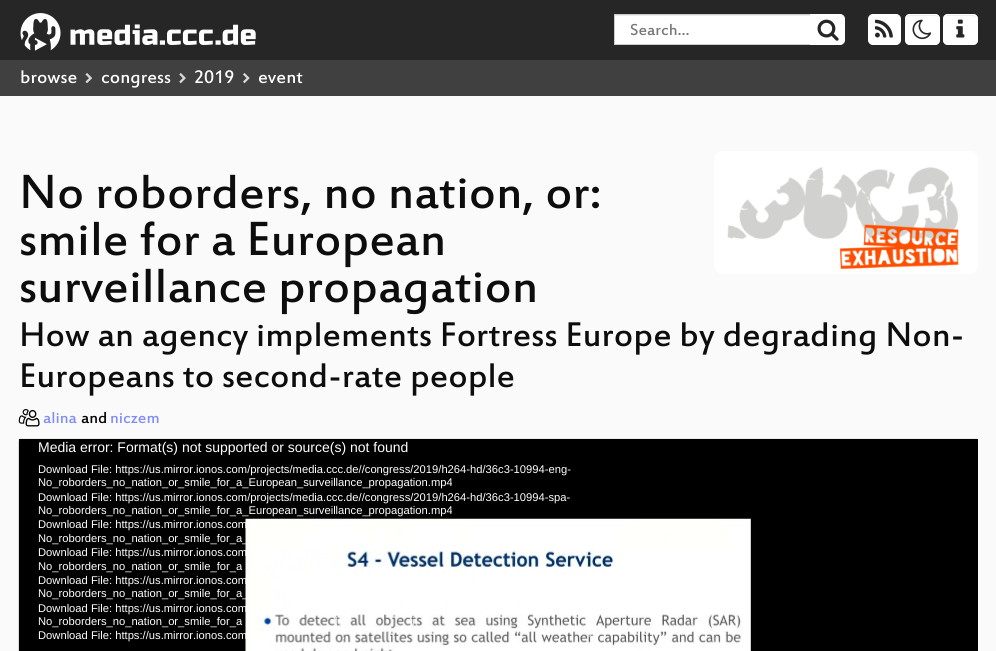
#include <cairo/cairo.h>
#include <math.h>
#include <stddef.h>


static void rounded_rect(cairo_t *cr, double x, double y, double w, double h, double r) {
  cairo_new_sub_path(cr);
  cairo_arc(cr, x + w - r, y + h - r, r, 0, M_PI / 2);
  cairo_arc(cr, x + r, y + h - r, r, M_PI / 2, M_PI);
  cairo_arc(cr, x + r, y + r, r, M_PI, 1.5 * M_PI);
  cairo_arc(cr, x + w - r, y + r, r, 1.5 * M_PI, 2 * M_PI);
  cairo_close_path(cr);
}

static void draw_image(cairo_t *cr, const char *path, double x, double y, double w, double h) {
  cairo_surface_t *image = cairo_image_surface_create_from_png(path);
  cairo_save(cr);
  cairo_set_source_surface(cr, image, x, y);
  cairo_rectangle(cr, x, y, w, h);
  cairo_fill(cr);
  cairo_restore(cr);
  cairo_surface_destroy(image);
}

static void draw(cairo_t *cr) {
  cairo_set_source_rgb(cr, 250 / 255.0, 250 / 255.0, 250 / 255.0);
  cairo_paint(cr);
  cairo_set_source_rgb(cr, 38 / 255.0, 38 / 255.0, 38 / 255.0);
  cairo_rectangle(cr, 0, 0, 996, 60);
  cairo_fill(cr);
  draw_image(cr, "images/1.png", 20, 13, 236, 38);
  cairo_set_source_rgb(cr, 1, 1, 1);
  cairo_rectangle(cr, 615, 16, 195, 28);
  cairo_fill(cr);
  cairo_set_source_rgb(cr, 236 / 255.0, 236 / 255.0, 236 / 255.0);
  cairo_rectangle(cr, 615, 15, 195, 1);
  cairo_fill(cr);
  cairo_rectangle(cr, 614.5, 14.5, 196, 30);
  cairo_set_source_rgb(cr, 204 / 255.0, 204 / 255.0, 204 / 255.0);
  cairo_set_line_width(cr, 1);
  cairo_stroke(cr);
  cairo_set_source_rgb(cr, 1, 1, 1);
  cairo_new_path(cr);
  cairo_move_to(cr, 810.5, 14.5);
  cairo_line_to(cr, 840, 14.5);
  cairo_curve_to(cr, 842.5, 14.5, 844.5, 16.5, 844.5, 19);
  cairo_line_to(cr, 844.5, 40);
  cairo_curve_to(cr, 844.5, 42.5, 842.5, 44.5, 840, 44.5);
  cairo_line_to(cr, 810.5, 44.5);
  cairo_close_path(cr);
  cairo_fill_preserve(cr);
  cairo_stroke(cr);
  draw_image(cr, "images/2.png", 817, 19, 22, 22);
  rounded_rect(cr, 868.5, 14.5, 32, 30, 4.5);
  cairo_fill_preserve(cr);
  cairo_stroke(cr);
  draw_image(cr, "images/3.png", 875, 19, 18, 19);
  rounded_rect(cr, 905, 14, 35, 31, 5);
  cairo_fill(cr);
  cairo_set_source_rgb(cr, 236 / 255.0, 236 / 255.0, 236 / 255.0);
  cairo_set_fill_rule(cr, CAIRO_FILL_RULE_EVEN_ODD);
  cairo_new_path(cr);
  cairo_move_to(cr, 910, 16);
  cairo_line_to(cr, 931, 16);
  cairo_curve_to(cr, 937.5, 16, 939, 17, 939, 21);
  cairo_line_to(cr, 939, 19);
  cairo_curve_to(cr, 939, 17, 937, 15, 935, 15);
  cairo_line_to(cr, 910, 15);
  cairo_curve_to(cr, 908, 15, 906, 17, 906, 19);
  cairo_line_to(cr, 906, 24);
  cairo_curve_to(cr, 906, 21, 906, 16, 910, 16);
  cairo_close_path(cr);
  cairo_move_to(cr, 906, 41);
  cairo_line_to(cr, 906, 38);
  cairo_close_path(cr);
  cairo_fill(cr);
  rounded_rect(cr, 905.5, 14.5, 34, 30, 4.5);
  cairo_set_source_rgb(cr, 1, 1, 1);
  cairo_stroke(cr);
  draw_image(cr, "images/4.png", 912, 19, 20, 21);
  rounded_rect(cr, 943, 14, 35, 31, 5);
  cairo_fill(cr);
  cairo_set_source_rgb(cr, 236 / 255.0, 236 / 255.0, 236 / 255.0);
  cairo_new_path(cr);
  cairo_move_to(cr, 948, 16);
  cairo_line_to(cr, 968, 16);
  cairo_curve_to(cr, 973.5, 16, 975.5, 16.5, 976, 19);
  cairo_curve_to(cr, 976, 16.5, 974, 15, 972, 15);
  cairo_line_to(cr, 948, 15);
  cairo_curve_to(cr, 946, 15, 944, 17, 944, 19);
  cairo_line_to(cr, 944, 19.5);
  cairo_curve_to(cr, 944, 17.5, 945, 16, 948, 16);
  cairo_close_path(cr);
  cairo_move_to(cr, 944, 41);
  cairo_line_to(cr, 944, 38);
  cairo_close_path(cr);
  cairo_fill(cr);
  rounded_rect(cr, 943.5, 14.5, 34, 30, 4.5);
  cairo_set_source_rgb(cr, 1, 1, 1);
  cairo_stroke(cr);
  draw_image(cr, "images/5.png", 956, 19, 9, 19);
  cairo_set_source_rgb(cr, 64 / 255.0, 64 / 255.0, 64 / 255.0);
  cairo_rectangle(cr, 0, 60, 996, 36);
  cairo_fill(cr);
  draw_image(cr, "images/6.png", 85, 73, 7, 10);
  draw_image(cr, "images/7.png", 179, 73, 7, 11);
  draw_image(cr, "images/8.png", 243, 73, 7, 11);
  cairo_set_source_rgb(cr, 1, 1, 1);
  rounded_rect(cr, 714, 151, 264, 123, 9);
  cairo_fill(cr);
  draw_image(cr, "images/9.png", 727, 167, 232, 102);
  draw_image(cr, "images/10.png", 18, 409, 22, 18);
  cairo_set_source_rgb(cr, 0, 0, 0);
  cairo_rectangle(cr, 977, 439, 1, 212);
  cairo_fill(cr);
  draw_image(cr, "images/11.png", 18, 441, 1, 210);
  draw_image(cr, "images/12.png", 18, 438, 959, 213);
  cairo_select_font_face(cr, "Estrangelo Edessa", CAIRO_FONT_SLANT_NORMAL, CAIRO_FONT_WEIGHT_NORMAL);
  cairo_set_font_size(cr, 17.5);
  cairo_set_source_rgb(cr, 119 / 255.0, 119 / 255.0, 119 / 255.0);
  cairo_move_to(cr, 630, 35);
  cairo_show_text(cr, "Search…");
  cairo_set_font_size(cr, 20);
  cairo_set_source_rgb(cr, 1, 1, 1);
  cairo_move_to(cr, 20, 83);
  cairo_show_text(cr, "browse");
  cairo_move_to(cr, 101, 83);
  cairo_show_text(cr, "congress");
  cairo_move_to(cr, 194, 83);
  cairo_show_text(cr, "2019");
  cairo_move_to(cr, 258, 83);
  cairo_show_text(cr, "event");
  cairo_set_font_size(cr, 52.5);
  cairo_set_source_rgb(cr, 13 / 255.0, 13 / 255.0, 13 / 255.0);
  cairo_move_to(cr, 19, 208);
  cairo_show_text(cr, "No roborders, no nation, or:");
  cairo_move_to(cr, 19, 255);
  cairo_show_text(cr, "smile for a European");
  cairo_move_to(cr, 19, 302);
  cairo_show_text(cr, "surveillance propagation");
  cairo_set_font_size(cr, 37.5);
  cairo_move_to(cr, 19, 346);
  cairo_show_text(cr, "How an agency implements Fortress Europe by degrading Non-");
  cairo_move_to(cr, 19, 387);
  cairo_show_text(cr, "Europeans to second-rate people");
  cairo_set_font_size(cr, 17.5);
  cairo_set_source_rgb(cr, 129 / 255.0, 140 / 255.0, 248 / 255.0);
  cairo_move_to(cr, 43, 423);
  cairo_show_text(cr, "alina");
  cairo_set_source_rgb(cr, 0, 0, 0);
  cairo_move_to(cr, 81, 423);
  cairo_show_text(cr, "and");
  cairo_set_source_rgb(cr, 129 / 255.0, 140 / 255.0, 248 / 255.0);
  cairo_move_to(cr, 110, 423);
  cairo_show_text(cr, "niczem");
  cairo_select_font_face(cr, "Liberation Sans", CAIRO_FONT_SLANT_NORMAL, CAIRO_FONT_WEIGHT_NORMAL);
  cairo_set_font_size(cr, 14);
  cairo_set_source_rgb(cr, 1, 1, 1);
  cairo_move_to(cr, 38, 452);
  cairo_show_text(cr, "Media error: Format(s) not supported or source(s) not found");
  cairo_set_font_size(cr, 11.2);
  cairo_move_to(cr, 38, 473);
  cairo_show_text(cr, "Download File: https://us.mirror.ionos.com/projects/media.ccc.de//congress/2019/h264-hd/36c3-10994-eng-");
  cairo_move_to(cr, 38, 486);
  cairo_show_text(cr, "No_roborders_no_nation_or_smile_for_a_European_surveillance_propagation.mp4");
  cairo_move_to(cr, 38, 501);
  cairo_show_text(cr, "Download File: https://us.mirror.ionos.com/projects/media.ccc.de//congress/2019/h264-hd/36c3-10994-spa-");
  cairo_move_to(cr, 38, 514);
  cairo_show_text(cr, "No_roborders_no_nation_or_smile_for_a_European_surveillance_propagation.mp4");
  cairo_move_to(cr, 38, 528);
  cairo_show_text(cr, "Download File: https://us.mirror.ionos.com");
  cairo_move_to(cr, 38, 542);
  cairo_show_text(cr, "No_roborders_no_nation_or_smile_for_a_");
  cairo_move_to(cr, 38, 556);
  cairo_show_text(cr, "Download File: https://us.mirror.ionos.com");
  cairo_move_to(cr, 38, 570);
  cairo_show_text(cr, "No_roborders_no_nation_or_smile_for_a");
  cairo_move_to(cr, 38, 584);
  cairo_show_text(cr, "Download File: https://us.mirror.ionos.com");
  cairo_move_to(cr, 38, 597);
  cairo_show_text(cr, "No_roborders_no_nation_or_smile_for_a_");
  cairo_move_to(cr, 38, 612);
  cairo_show_text(cr, "Download File: https://us.mirror.ionos.com");
  cairo_move_to(cr, 38, 625);
  cairo_show_text(cr, "No_roborders_no_nation_or_smile_for_a");
  cairo_move_to(cr, 335, 625);
  cairo_show_text(cr, "l");
  cairo_move_to(cr, 412, 625);
  cairo_show_text(cr, "i");
  cairo_move_to(cr, 38, 639);
  cairo_show_text(cr, "Download File: https://us.mirror.ionos.com");
  cairo_move_to(cr, 588, 639);
  cairo_show_text(cr, "-");
  cairo_move_to(cr, 322, 639);
  cairo_show_text(cr, ".");
  cairo_move_to(cr, 342, 639);
  cairo_show_text(cr, ".");
}

int main(void) {
  cairo_surface_t *surface = cairo_image_surface_create(CAIRO_FORMAT_RGB24, 996, 651);
  cairo_t *cr = cairo_create(surface);
  cairo_font_options_t *options = cairo_font_options_create();
  cairo_font_options_set_hint_metrics(options, CAIRO_HINT_METRICS_OFF);
  cairo_font_options_set_hint_style(options, CAIRO_HINT_STYLE_NONE);
  cairo_set_font_options(cr, options);
  cairo_set_miter_limit(cr, 4);
  draw(cr);
  cairo_surface_write_to_png(surface, "out.png");
  cairo_font_options_destroy(options);
  cairo_destroy(cr);
  cairo_surface_destroy(surface);
  return 0;
}
